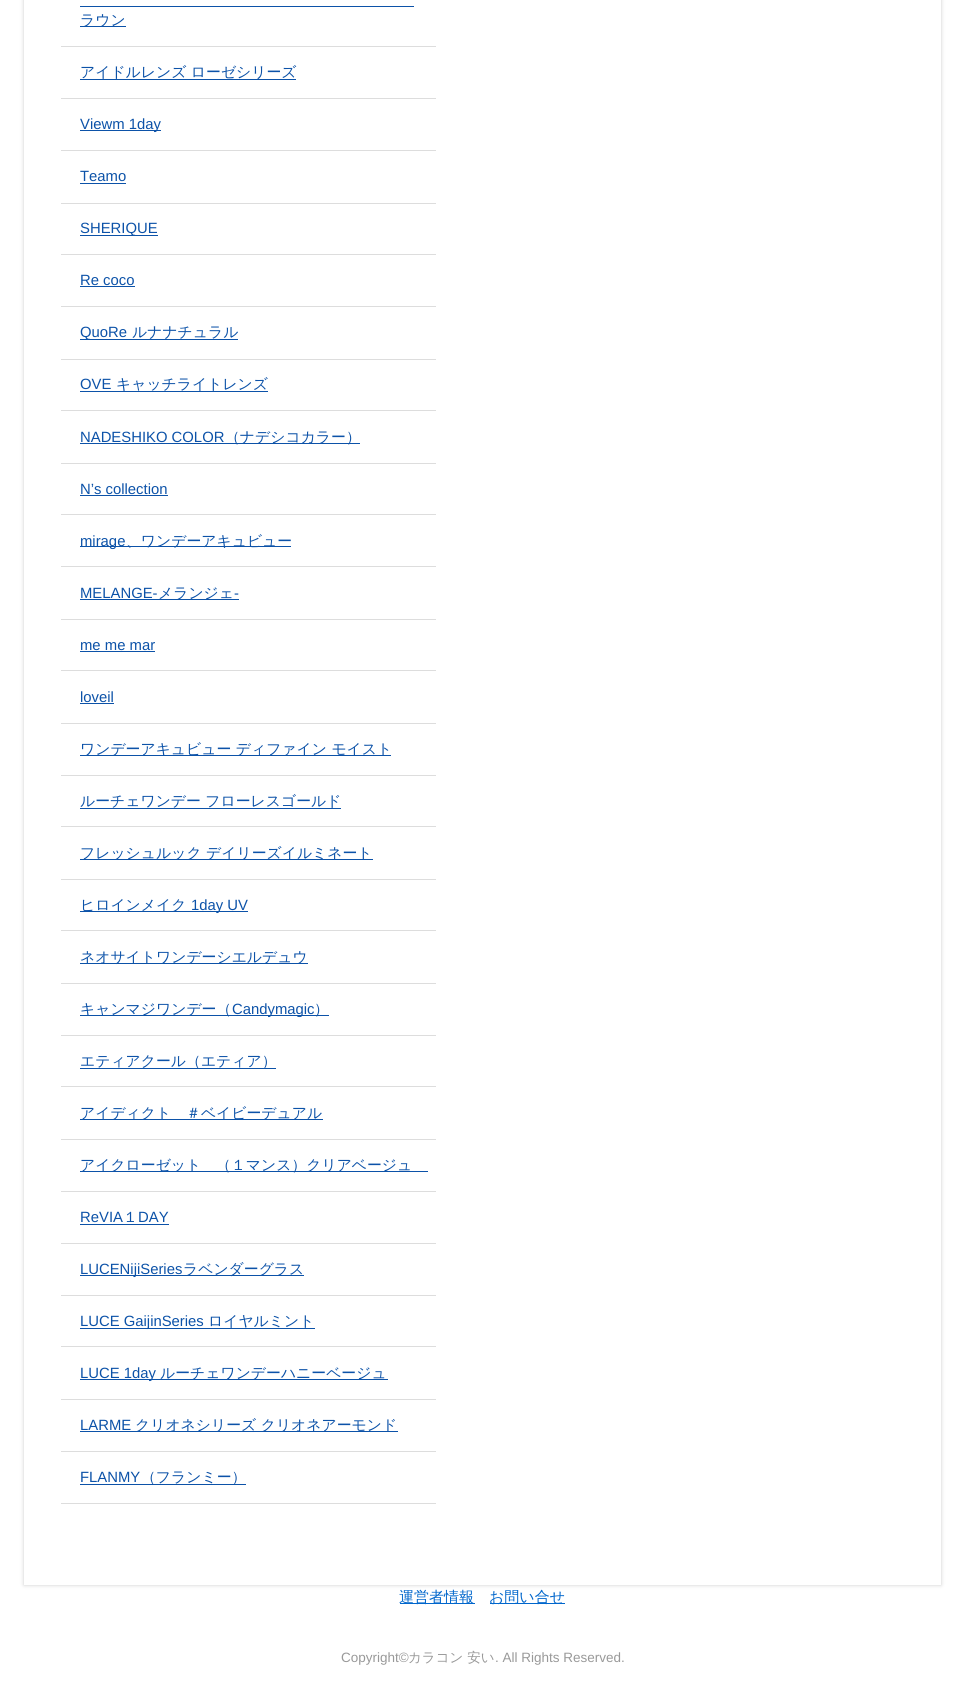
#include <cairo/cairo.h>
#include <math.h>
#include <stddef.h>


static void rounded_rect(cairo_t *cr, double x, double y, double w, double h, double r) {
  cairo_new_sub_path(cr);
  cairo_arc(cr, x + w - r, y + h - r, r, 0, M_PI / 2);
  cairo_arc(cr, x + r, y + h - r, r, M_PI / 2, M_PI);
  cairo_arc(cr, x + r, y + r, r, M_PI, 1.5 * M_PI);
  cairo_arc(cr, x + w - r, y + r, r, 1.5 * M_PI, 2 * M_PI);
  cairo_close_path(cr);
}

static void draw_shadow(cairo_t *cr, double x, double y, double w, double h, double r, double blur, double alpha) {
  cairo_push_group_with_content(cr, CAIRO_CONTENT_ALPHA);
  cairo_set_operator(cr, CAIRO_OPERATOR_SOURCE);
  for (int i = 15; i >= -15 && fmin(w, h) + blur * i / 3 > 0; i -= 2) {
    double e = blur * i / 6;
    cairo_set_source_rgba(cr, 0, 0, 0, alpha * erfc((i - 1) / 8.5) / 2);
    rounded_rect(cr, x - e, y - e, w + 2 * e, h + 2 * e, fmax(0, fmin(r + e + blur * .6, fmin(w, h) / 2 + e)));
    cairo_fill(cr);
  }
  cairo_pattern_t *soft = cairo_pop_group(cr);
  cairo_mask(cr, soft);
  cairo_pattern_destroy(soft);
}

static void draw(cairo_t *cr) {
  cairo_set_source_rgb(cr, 1, 1, 1);
  cairo_paint(cr);
  cairo_save(cr);
  cairo_set_fill_rule(cr, CAIRO_FILL_RULE_EVEN_ODD);
  cairo_new_path(cr);
  cairo_move_to(cr, 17, 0);
  cairo_line_to(cr, 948, 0);
  cairo_line_to(cr, 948, 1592);
  cairo_line_to(cr, 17, 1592);
  cairo_close_path(cr);
  cairo_move_to(cr, 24, -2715);
  cairo_line_to(cr, 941, -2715);
  cairo_line_to(cr, 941, 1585);
  cairo_line_to(cr, 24, 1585);
  cairo_close_path(cr);
  cairo_clip(cr);
  cairo_set_source_rgb(cr, 204 / 255.0, 204 / 255.0, 204 / 255.0);
  draw_shadow(cr, 24, -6, 917, 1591, 0, 2, 1);
  cairo_restore(cr);
  cairo_set_source_rgb(cr, 221 / 255.0, 221 / 255.0, 221 / 255.0);
  cairo_rectangle(cr, 61, 46, 375, 1);
  cairo_fill(cr);
  cairo_set_source_rgb(cr, 12 / 255.0, 82 / 255.0, 168 / 255.0);
  cairo_rectangle(cr, 80, 6, 334, 1);
  cairo_fill(cr);
  cairo_rectangle(cr, 80, 26, 46, 1);
  cairo_fill(cr);
  cairo_set_source_rgb(cr, 221 / 255.0, 221 / 255.0, 221 / 255.0);
  cairo_rectangle(cr, 61, 98, 375, 1);
  cairo_fill(cr);
  cairo_set_source_rgb(cr, 12 / 255.0, 82 / 255.0, 168 / 255.0);
  cairo_rectangle(cr, 80, 79, 216, 1);
  cairo_fill(cr);
  cairo_set_source_rgb(cr, 221 / 255.0, 221 / 255.0, 221 / 255.0);
  cairo_rectangle(cr, 61, 150, 375, 1);
  cairo_fill(cr);
  cairo_set_source_rgb(cr, 12 / 255.0, 82 / 255.0, 168 / 255.0);
  cairo_rectangle(cr, 80, 130, 81, 1);
  cairo_fill(cr);
  cairo_set_source_rgb(cr, 221 / 255.0, 221 / 255.0, 221 / 255.0);
  cairo_rectangle(cr, 61, 203, 375, 1);
  cairo_fill(cr);
  cairo_set_source_rgb(cr, 12 / 255.0, 82 / 255.0, 168 / 255.0);
  cairo_rectangle(cr, 80, 183, 46, 1);
  cairo_fill(cr);
  cairo_set_source_rgb(cr, 221 / 255.0, 221 / 255.0, 221 / 255.0);
  cairo_rectangle(cr, 61, 254, 375, 1);
  cairo_fill(cr);
  cairo_set_source_rgb(cr, 12 / 255.0, 82 / 255.0, 168 / 255.0);
  cairo_rectangle(cr, 80, 235, 78, 1);
  cairo_fill(cr);
  cairo_set_source_rgb(cr, 221 / 255.0, 221 / 255.0, 221 / 255.0);
  cairo_rectangle(cr, 61, 306, 375, 1);
  cairo_fill(cr);
  cairo_set_source_rgb(cr, 12 / 255.0, 82 / 255.0, 168 / 255.0);
  cairo_rectangle(cr, 80, 286, 55, 1);
  cairo_fill(cr);
  cairo_set_source_rgb(cr, 221 / 255.0, 221 / 255.0, 221 / 255.0);
  cairo_rectangle(cr, 61, 359, 375, 1);
  cairo_fill(cr);
  cairo_set_source_rgb(cr, 12 / 255.0, 82 / 255.0, 168 / 255.0);
  cairo_rectangle(cr, 80, 339, 158, 1);
  cairo_fill(cr);
  cairo_set_source_rgb(cr, 221 / 255.0, 221 / 255.0, 221 / 255.0);
  cairo_rectangle(cr, 61, 410, 375, 1);
  cairo_fill(cr);
  cairo_set_source_rgb(cr, 12 / 255.0, 82 / 255.0, 168 / 255.0);
  cairo_rectangle(cr, 80, 391, 188, 1);
  cairo_fill(cr);
  cairo_set_source_rgb(cr, 221 / 255.0, 221 / 255.0, 221 / 255.0);
  cairo_rectangle(cr, 61, 463, 375, 1);
  cairo_fill(cr);
  cairo_set_source_rgb(cr, 12 / 255.0, 82 / 255.0, 168 / 255.0);
  cairo_rectangle(cr, 80, 443, 280, 1);
  cairo_fill(cr);
  cairo_set_source_rgb(cr, 221 / 255.0, 221 / 255.0, 221 / 255.0);
  cairo_rectangle(cr, 61, 514, 375, 1);
  cairo_fill(cr);
  cairo_set_source_rgb(cr, 12 / 255.0, 82 / 255.0, 168 / 255.0);
  cairo_rectangle(cr, 80, 495, 88, 1);
  cairo_fill(cr);
  cairo_set_source_rgb(cr, 221 / 255.0, 221 / 255.0, 221 / 255.0);
  cairo_rectangle(cr, 61, 566, 375, 1);
  cairo_fill(cr);
  cairo_set_source_rgb(cr, 12 / 255.0, 82 / 255.0, 168 / 255.0);
  cairo_rectangle(cr, 80, 546, 211, 1);
  cairo_fill(cr);
  cairo_set_source_rgb(cr, 221 / 255.0, 221 / 255.0, 221 / 255.0);
  cairo_rectangle(cr, 61, 619, 375, 1);
  cairo_fill(cr);
  cairo_set_source_rgb(cr, 12 / 255.0, 82 / 255.0, 168 / 255.0);
  cairo_rectangle(cr, 80, 599, 159, 1);
  cairo_fill(cr);
  cairo_set_source_rgb(cr, 221 / 255.0, 221 / 255.0, 221 / 255.0);
  cairo_rectangle(cr, 61, 670, 375, 1);
  cairo_fill(cr);
  cairo_set_source_rgb(cr, 12 / 255.0, 82 / 255.0, 168 / 255.0);
  cairo_rectangle(cr, 80, 651, 75, 1);
  cairo_fill(cr);
  cairo_set_source_rgb(cr, 221 / 255.0, 221 / 255.0, 221 / 255.0);
  cairo_rectangle(cr, 61, 723, 375, 1);
  cairo_fill(cr);
  cairo_set_source_rgb(cr, 12 / 255.0, 82 / 255.0, 168 / 255.0);
  cairo_rectangle(cr, 80, 703, 34, 1);
  cairo_fill(cr);
  cairo_set_source_rgb(cr, 221 / 255.0, 221 / 255.0, 221 / 255.0);
  cairo_rectangle(cr, 61, 775, 375, 1);
  cairo_fill(cr);
  cairo_set_source_rgb(cr, 12 / 255.0, 82 / 255.0, 168 / 255.0);
  cairo_rectangle(cr, 80, 755, 311, 1);
  cairo_fill(cr);
  cairo_set_source_rgb(cr, 221 / 255.0, 221 / 255.0, 221 / 255.0);
  cairo_rectangle(cr, 61, 826, 375, 1);
  cairo_fill(cr);
  cairo_set_source_rgb(cr, 12 / 255.0, 82 / 255.0, 168 / 255.0);
  cairo_rectangle(cr, 80, 808, 261, 1);
  cairo_fill(cr);
  cairo_set_source_rgb(cr, 221 / 255.0, 221 / 255.0, 221 / 255.0);
  cairo_rectangle(cr, 61, 879, 375, 1);
  cairo_fill(cr);
  cairo_set_source_rgb(cr, 12 / 255.0, 82 / 255.0, 168 / 255.0);
  cairo_rectangle(cr, 80, 859, 293, 1);
  cairo_fill(cr);
  cairo_set_source_rgb(cr, 221 / 255.0, 221 / 255.0, 221 / 255.0);
  cairo_rectangle(cr, 61, 930, 375, 1);
  cairo_fill(cr);
  cairo_set_source_rgb(cr, 12 / 255.0, 82 / 255.0, 168 / 255.0);
  cairo_rectangle(cr, 80, 911, 168, 1);
  cairo_fill(cr);
  cairo_set_source_rgb(cr, 221 / 255.0, 221 / 255.0, 221 / 255.0);
  cairo_rectangle(cr, 61, 983, 375, 1);
  cairo_fill(cr);
  cairo_set_source_rgb(cr, 12 / 255.0, 82 / 255.0, 168 / 255.0);
  cairo_rectangle(cr, 80, 963, 228, 1);
  cairo_fill(cr);
  cairo_set_source_rgb(cr, 221 / 255.0, 221 / 255.0, 221 / 255.0);
  cairo_rectangle(cr, 61, 1035, 375, 1);
  cairo_fill(cr);
  cairo_set_source_rgb(cr, 12 / 255.0, 82 / 255.0, 168 / 255.0);
  cairo_rectangle(cr, 80, 1015, 249, 1);
  cairo_fill(cr);
  cairo_set_source_rgb(cr, 221 / 255.0, 221 / 255.0, 221 / 255.0);
  cairo_rectangle(cr, 61, 1086, 375, 1);
  cairo_fill(cr);
  cairo_set_source_rgb(cr, 12 / 255.0, 82 / 255.0, 168 / 255.0);
  cairo_rectangle(cr, 80, 1068, 196, 1);
  cairo_fill(cr);
  cairo_set_source_rgb(cr, 221 / 255.0, 221 / 255.0, 221 / 255.0);
  cairo_rectangle(cr, 61, 1139, 375, 1);
  cairo_fill(cr);
  cairo_set_source_rgb(cr, 12 / 255.0, 82 / 255.0, 168 / 255.0);
  cairo_rectangle(cr, 80, 1119, 243, 1);
  cairo_fill(cr);
  cairo_set_source_rgb(cr, 221 / 255.0, 221 / 255.0, 221 / 255.0);
  cairo_rectangle(cr, 61, 1191, 375, 1);
  cairo_fill(cr);
  cairo_set_source_rgb(cr, 12 / 255.0, 82 / 255.0, 168 / 255.0);
  cairo_rectangle(cr, 80, 1171, 348, 1);
  cairo_fill(cr);
  cairo_set_source_rgb(cr, 221 / 255.0, 221 / 255.0, 221 / 255.0);
  cairo_rectangle(cr, 61, 1243, 375, 1);
  cairo_fill(cr);
  cairo_set_source_rgb(cr, 12 / 255.0, 82 / 255.0, 168 / 255.0);
  cairo_rectangle(cr, 80, 1224, 89, 1);
  cairo_fill(cr);
  cairo_set_source_rgb(cr, 221 / 255.0, 221 / 255.0, 221 / 255.0);
  cairo_rectangle(cr, 61, 1295, 375, 1);
  cairo_fill(cr);
  cairo_set_source_rgb(cr, 12 / 255.0, 82 / 255.0, 168 / 255.0);
  cairo_rectangle(cr, 80, 1275, 224, 1);
  cairo_fill(cr);
  cairo_set_source_rgb(cr, 221 / 255.0, 221 / 255.0, 221 / 255.0);
  cairo_rectangle(cr, 61, 1346, 375, 1);
  cairo_fill(cr);
  cairo_set_source_rgb(cr, 12 / 255.0, 82 / 255.0, 168 / 255.0);
  cairo_rectangle(cr, 80, 1328, 235, 1);
  cairo_fill(cr);
  cairo_set_source_rgb(cr, 221 / 255.0, 221 / 255.0, 221 / 255.0);
  cairo_rectangle(cr, 61, 1399, 375, 1);
  cairo_fill(cr);
  cairo_set_source_rgb(cr, 12 / 255.0, 82 / 255.0, 168 / 255.0);
  cairo_rectangle(cr, 80, 1379, 308, 1);
  cairo_fill(cr);
  cairo_set_source_rgb(cr, 221 / 255.0, 221 / 255.0, 221 / 255.0);
  cairo_rectangle(cr, 61, 1451, 375, 1);
  cairo_fill(cr);
  cairo_set_source_rgb(cr, 12 / 255.0, 82 / 255.0, 168 / 255.0);
  cairo_rectangle(cr, 80, 1431, 318, 1);
  cairo_fill(cr);
  cairo_set_source_rgb(cr, 221 / 255.0, 221 / 255.0, 221 / 255.0);
  cairo_rectangle(cr, 61, 1503, 375, 1);
  cairo_fill(cr);
  cairo_set_source_rgb(cr, 12 / 255.0, 82 / 255.0, 168 / 255.0);
  cairo_rectangle(cr, 80, 1484, 166, 1);
  cairo_fill(cr);
  cairo_set_source_rgb(cr, 0, 102 / 255.0, 204 / 255.0);
  cairo_rectangle(cr, 400, 1603, 75, 1);
  cairo_fill(cr);
  cairo_rectangle(cr, 490, 1603, 75, 1);
  cairo_fill(cr);
  cairo_select_font_face(cr, "WenQuanYi Zen Hei Medium", CAIRO_FONT_SLANT_NORMAL, CAIRO_FONT_WEIGHT_NORMAL);
  cairo_set_font_size(cr, 14.85);
  cairo_set_source_rgb(cr, 12 / 255.0, 82 / 255.0, 168 / 255.0);
  cairo_move_to(cr, 80, 25);
  cairo_show_text(cr, "ラウン");
  cairo_move_to(cr, 80, 77);
  cairo_show_text(cr, "アイドルレンズ ローゼシリーズ");
  cairo_select_font_face(cr, "Liberation Sans", CAIRO_FONT_SLANT_NORMAL, CAIRO_FONT_WEIGHT_NORMAL);
  cairo_move_to(cr, 80, 129);
  cairo_show_text(cr, "Viewm 1day");
  cairo_move_to(cr, 80, 181);
  cairo_show_text(cr, "Teamo");
  cairo_move_to(cr, 80, 233);
  cairo_show_text(cr, "SHERIQUE");
  cairo_move_to(cr, 80, 285);
  cairo_show_text(cr, "Re coco");
  cairo_move_to(cr, 80, 337);
  cairo_show_text(cr, "QuoRe");
  cairo_select_font_face(cr, "WenQuanYi Zen Hei Medium", CAIRO_FONT_SLANT_NORMAL, CAIRO_FONT_WEIGHT_NORMAL);
  cairo_move_to(cr, 132, 337);
  cairo_show_text(cr, "ルナナチュラル");
  cairo_select_font_face(cr, "Liberation Sans", CAIRO_FONT_SLANT_NORMAL, CAIRO_FONT_WEIGHT_NORMAL);
  cairo_move_to(cr, 80, 389);
  cairo_show_text(cr, "OVE");
  cairo_select_font_face(cr, "WenQuanYi Zen Hei Medium", CAIRO_FONT_SLANT_NORMAL, CAIRO_FONT_WEIGHT_NORMAL);
  cairo_move_to(cr, 116, 389);
  cairo_show_text(cr, "キャッチライトレンズ");
  cairo_select_font_face(cr, "Liberation Sans", CAIRO_FONT_SLANT_NORMAL, CAIRO_FONT_WEIGHT_NORMAL);
  cairo_move_to(cr, 80, 442);
  cairo_show_text(cr, "NADESHIKO COLOR");
  cairo_select_font_face(cr, "WenQuanYi Zen Hei Medium", CAIRO_FONT_SLANT_NORMAL, CAIRO_FONT_WEIGHT_NORMAL);
  cairo_move_to(cr, 225, 442);
  cairo_show_text(cr, "（ナデシコカラー）");
  cairo_select_font_face(cr, "Liberation Sans", CAIRO_FONT_SLANT_NORMAL, CAIRO_FONT_WEIGHT_NORMAL);
  cairo_move_to(cr, 80, 494);
  cairo_show_text(cr, "N’s collection");
  cairo_move_to(cr, 80, 546);
  cairo_show_text(cr, "mirage");
  cairo_select_font_face(cr, "WenQuanYi Zen Hei Medium", CAIRO_FONT_SLANT_NORMAL, CAIRO_FONT_WEIGHT_NORMAL);
  cairo_move_to(cr, 126, 546);
  cairo_show_text(cr, "、ワンデーアキュビュー");
  cairo_select_font_face(cr, "Liberation Sans", CAIRO_FONT_SLANT_NORMAL, CAIRO_FONT_WEIGHT_NORMAL);
  cairo_move_to(cr, 80, 598);
  cairo_show_text(cr, "MELANGE-");
  cairo_select_font_face(cr, "WenQuanYi Zen Hei Medium", CAIRO_FONT_SLANT_NORMAL, CAIRO_FONT_WEIGHT_NORMAL);
  cairo_move_to(cr, 158, 598);
  cairo_show_text(cr, "メランジェ");
  cairo_select_font_face(cr, "Liberation Sans", CAIRO_FONT_SLANT_NORMAL, CAIRO_FONT_WEIGHT_NORMAL);
  cairo_move_to(cr, 234, 598);
  cairo_show_text(cr, "-");
  cairo_move_to(cr, 80, 650);
  cairo_show_text(cr, "me me mar");
  cairo_move_to(cr, 80, 702);
  cairo_show_text(cr, "loveil");
  cairo_select_font_face(cr, "WenQuanYi Zen Hei Medium", CAIRO_FONT_SLANT_NORMAL, CAIRO_FONT_WEIGHT_NORMAL);
  cairo_move_to(cr, 80, 754);
  cairo_show_text(cr, "ワンデーアキュビュー ディファイン モイスト");
  cairo_move_to(cr, 80, 806);
  cairo_show_text(cr, "ルーチェワンデー フローレスゴールド");
  cairo_move_to(cr, 80, 858);
  cairo_show_text(cr, "フレッシュルック デイリーズイルミネート");
  cairo_move_to(cr, 80, 910);
  cairo_show_text(cr, "ヒロインメイク");
  cairo_select_font_face(cr, "Liberation Sans", CAIRO_FONT_SLANT_NORMAL, CAIRO_FONT_WEIGHT_NORMAL);
  cairo_move_to(cr, 191, 910);
  cairo_show_text(cr, "1day UV");
  cairo_select_font_face(cr, "WenQuanYi Zen Hei Medium", CAIRO_FONT_SLANT_NORMAL, CAIRO_FONT_WEIGHT_NORMAL);
  cairo_move_to(cr, 80, 962);
  cairo_show_text(cr, "ネオサイトワンデーシエルデュウ");
  cairo_move_to(cr, 80, 1014);
  cairo_show_text(cr, "キャンマジワンデー（");
  cairo_select_font_face(cr, "Liberation Sans", CAIRO_FONT_SLANT_NORMAL, CAIRO_FONT_WEIGHT_NORMAL);
  cairo_move_to(cr, 232, 1014);
  cairo_show_text(cr, "Candymagic");
  cairo_select_font_face(cr, "WenQuanYi Zen Hei Medium", CAIRO_FONT_SLANT_NORMAL, CAIRO_FONT_WEIGHT_NORMAL);
  cairo_move_to(cr, 314, 1014);
  cairo_show_text(cr, "）");
  cairo_move_to(cr, 80, 1066);
  cairo_show_text(cr, "エティアクール（エティア）");
  cairo_move_to(cr, 80, 1118);
  cairo_show_text(cr, "アイディクト　＃ベイビーデュアル");
  cairo_move_to(cr, 80, 1170);
  cairo_show_text(cr, "アイクローゼット　（１マンス）クリアベージュ");
  cairo_select_font_face(cr, "Liberation Sans", CAIRO_FONT_SLANT_NORMAL, CAIRO_FONT_WEIGHT_NORMAL);
  cairo_move_to(cr, 80, 1222);
  cairo_show_text(cr, "ReVIA");
  cairo_select_font_face(cr, "WenQuanYi Zen Hei Medium", CAIRO_FONT_SLANT_NORMAL, CAIRO_FONT_WEIGHT_NORMAL);
  cairo_move_to(cr, 123, 1222);
  cairo_show_text(cr, "１");
  cairo_select_font_face(cr, "Liberation Sans", CAIRO_FONT_SLANT_NORMAL, CAIRO_FONT_WEIGHT_NORMAL);
  cairo_move_to(cr, 138, 1222);
  cairo_show_text(cr, "DAY");
  cairo_move_to(cr, 80, 1274);
  cairo_show_text(cr, "LUCENijiSeries");
  cairo_select_font_face(cr, "WenQuanYi Zen Hei Medium", CAIRO_FONT_SLANT_NORMAL, CAIRO_FONT_WEIGHT_NORMAL);
  cairo_move_to(cr, 183, 1274);
  cairo_show_text(cr, "ラベンダーグラス");
  cairo_select_font_face(cr, "Liberation Sans", CAIRO_FONT_SLANT_NORMAL, CAIRO_FONT_WEIGHT_NORMAL);
  cairo_move_to(cr, 80, 1326);
  cairo_show_text(cr, "LUCE GaijinSeries");
  cairo_select_font_face(cr, "WenQuanYi Zen Hei Medium", CAIRO_FONT_SLANT_NORMAL, CAIRO_FONT_WEIGHT_NORMAL);
  cairo_move_to(cr, 208, 1326);
  cairo_show_text(cr, "ロイヤルミント");
  cairo_select_font_face(cr, "Liberation Sans", CAIRO_FONT_SLANT_NORMAL, CAIRO_FONT_WEIGHT_NORMAL);
  cairo_move_to(cr, 80, 1378);
  cairo_show_text(cr, "LUCE 1day");
  cairo_select_font_face(cr, "WenQuanYi Zen Hei Medium", CAIRO_FONT_SLANT_NORMAL, CAIRO_FONT_WEIGHT_NORMAL);
  cairo_move_to(cr, 160, 1378);
  cairo_show_text(cr, "ルーチェワンデーハニーベージュ");
  cairo_select_font_face(cr, "Liberation Sans", CAIRO_FONT_SLANT_NORMAL, CAIRO_FONT_WEIGHT_NORMAL);
  cairo_move_to(cr, 80, 1430);
  cairo_show_text(cr, "LARME");
  cairo_select_font_face(cr, "WenQuanYi Zen Hei Medium", CAIRO_FONT_SLANT_NORMAL, CAIRO_FONT_WEIGHT_NORMAL);
  cairo_move_to(cr, 135, 1430);
  cairo_show_text(cr, "クリオネシリーズ クリオネアーモンド");
  cairo_select_font_face(cr, "Liberation Sans", CAIRO_FONT_SLANT_NORMAL, CAIRO_FONT_WEIGHT_NORMAL);
  cairo_move_to(cr, 80, 1482);
  cairo_show_text(cr, "FLANMY");
  cairo_select_font_face(cr, "WenQuanYi Zen Hei Medium", CAIRO_FONT_SLANT_NORMAL, CAIRO_FONT_WEIGHT_NORMAL);
  cairo_move_to(cr, 141, 1482);
  cairo_show_text(cr, "（フランミー）");
  cairo_set_font_size(cr, 15);
  cairo_set_source_rgb(cr, 0, 102 / 255.0, 204 / 255.0);
  cairo_move_to(cr, 399, 1602);
  cairo_show_text(cr, "運営者情報");
  cairo_move_to(cr, 489, 1602);
  cairo_show_text(cr, "お問い合せ");
  cairo_select_font_face(cr, "Liberation Sans", CAIRO_FONT_SLANT_NORMAL, CAIRO_FONT_WEIGHT_NORMAL);
  cairo_set_font_size(cr, 13.5);
  cairo_set_source_rgb(cr, 153 / 255.0, 153 / 255.0, 153 / 255.0);
  cairo_move_to(cr, 341, 1662);
  cairo_show_text(cr, "Copyright©");
  cairo_select_font_face(cr, "WenQuanYi Zen Hei Medium", CAIRO_FONT_SLANT_NORMAL, CAIRO_FONT_WEIGHT_NORMAL);
  cairo_move_to(cr, 408, 1662);
  cairo_show_text(cr, "カラコン 安い");
  cairo_select_font_face(cr, "Liberation Sans", CAIRO_FONT_SLANT_NORMAL, CAIRO_FONT_WEIGHT_NORMAL);
  cairo_move_to(cr, 495, 1662);
  cairo_show_text(cr, ". All Rights Reserved.");
}

int main(void) {
  cairo_surface_t *surface = cairo_image_surface_create(CAIRO_FORMAT_RGB24, 964, 1692);
  cairo_t *cr = cairo_create(surface);
  cairo_font_options_t *options = cairo_font_options_create();
  cairo_font_options_set_hint_metrics(options, CAIRO_HINT_METRICS_OFF);
  cairo_font_options_set_hint_style(options, CAIRO_HINT_STYLE_NONE);
  cairo_set_font_options(cr, options);
  cairo_set_miter_limit(cr, 4);
  draw(cr);
  cairo_surface_write_to_png(surface, "out.png");
  cairo_font_options_destroy(options);
  cairo_destroy(cr);
  cairo_surface_destroy(surface);
  return 0;
}
